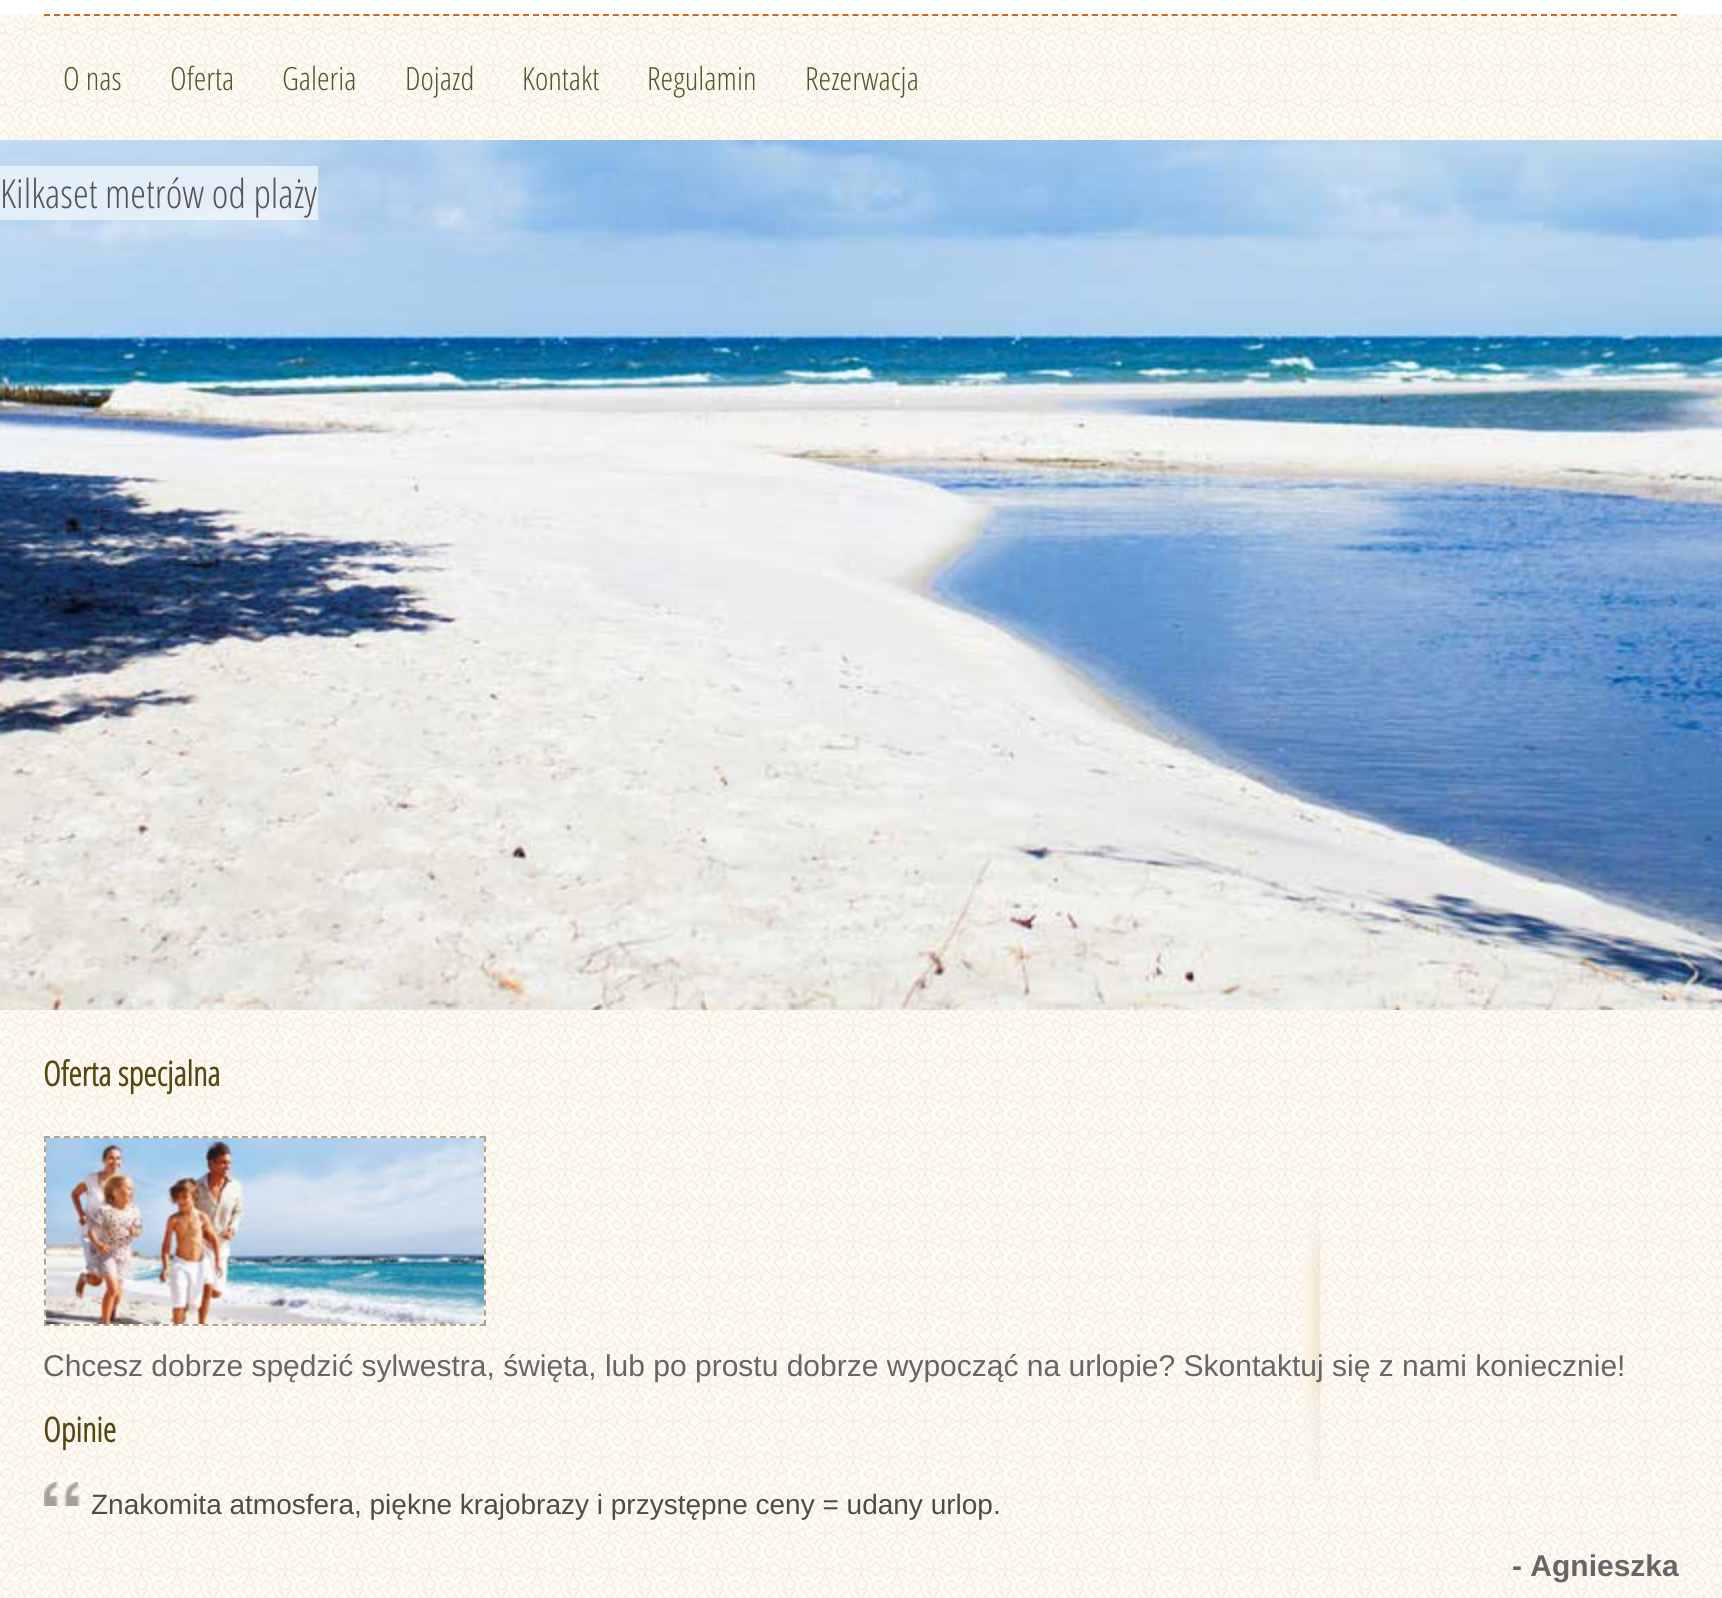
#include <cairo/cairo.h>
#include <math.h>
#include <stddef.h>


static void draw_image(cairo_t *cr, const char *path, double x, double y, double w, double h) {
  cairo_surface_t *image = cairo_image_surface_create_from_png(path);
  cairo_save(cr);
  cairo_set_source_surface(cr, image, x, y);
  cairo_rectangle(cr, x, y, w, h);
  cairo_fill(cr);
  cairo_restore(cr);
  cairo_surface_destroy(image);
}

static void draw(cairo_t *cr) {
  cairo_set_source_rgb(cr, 1, 1, 1);
  cairo_paint(cr);
  draw_image(cr, "images/1.png", 0, 14, 1722, 126);
  cairo_new_path(cr);
  cairo_move_to(cr, 44, 15);
  cairo_line_to(cr, 1678, 15);
  cairo_set_source_rgb(cr, 202 / 255.0, 105 / 255.0, 34 / 255.0);
  cairo_set_dash(cr, (double[]){6, 3.98}, 2, 0);
  cairo_stroke(cr);
  draw_image(cr, "images/2.png", 0, 140, 1722, 870);
  cairo_set_source_rgba(cr, 1, 1, 1, 0.6);
  cairo_rectangle(cr, 0, 166, 318, 54);
  cairo_fill(cr);
  draw_image(cr, "images/3.png", 0, 1010, 1722, 588);
  draw_image(cr, "images/4.png", 1304, 1195, 17, 287);
  cairo_new_path(cr);
  cairo_move_to(cr, 44, 1137);
  cairo_line_to(cr, 486, 1137);
  cairo_set_source_rgb(cr, 181 / 255.0, 164 / 255.0, 138 / 255.0);
  cairo_set_dash(cr, (double[]){6, 3.9}, 2, 0);
  cairo_stroke(cr);
  cairo_new_path(cr);
  cairo_move_to(cr, 485, 1136);
  cairo_line_to(cr, 485, 1326);
  cairo_set_dash(cr, (double[]){6, 4.22}, 2, 0);
  cairo_stroke(cr);
  cairo_new_path(cr);
  cairo_move_to(cr, 44, 1325);
  cairo_line_to(cr, 486, 1325);
  cairo_set_dash(cr, (double[]){6, 3.9}, 2, 0);
  cairo_stroke(cr);
  cairo_new_path(cr);
  cairo_move_to(cr, 45, 1136);
  cairo_line_to(cr, 45, 1326);
  cairo_set_dash(cr, (double[]){6, 4.22}, 2, 0);
  cairo_stroke(cr);
  draw_image(cr, "images/5.png", 46, 1138, 438, 186);
  draw_image(cr, "images/6.png", 44, 1482, 1634, 116);
  draw_image(cr, "images/7.png", 44, 1482, 36, 24);
  cairo_select_font_face(cr, "Open Sans Condensed Light", CAIRO_FONT_SLANT_NORMAL, CAIRO_FONT_WEIGHT_NORMAL);
  cairo_set_font_size(cr, 32);
  cairo_set_source_rgb(cr, 84 / 255.0, 86 / 255.0, 40 / 255.0);
  cairo_move_to(cr, 63, 90);
  cairo_show_text(cr, "O nas");
  cairo_move_to(cr, 170, 90);
  cairo_show_text(cr, "Oferta");
  cairo_move_to(cr, 282, 90);
  cairo_show_text(cr, "Galeria");
  cairo_move_to(cr, 405, 90);
  cairo_show_text(cr, "Dojazd");
  cairo_move_to(cr, 522, 90);
  cairo_show_text(cr, "Kontakt");
  cairo_move_to(cr, 647, 90);
  cairo_show_text(cr, "Regulamin");
  cairo_move_to(cr, 805, 90);
  cairo_show_text(cr, "Rezerwacja");
  cairo_set_font_size(cr, 40);
  cairo_set_source_rgb(cr, 85 / 255.0, 85 / 255.0, 85 / 255.0);
  cairo_move_to(cr, 0, 208);
  cairo_show_text(cr, "Kilkaset metrów od plaży");
  cairo_select_font_face(cr, "Open Sans Condensed", CAIRO_FONT_SLANT_NORMAL, CAIRO_FONT_WEIGHT_BOLD);
  cairo_set_font_size(cr, 34);
  cairo_set_source_rgb(cr, 86 / 255.0, 72 / 255.0, 18 / 255.0);
  cairo_move_to(cr, 43, 1086);
  cairo_show_text(cr, "Oferta specjalna");
  cairo_select_font_face(cr, "Liberation Sans", CAIRO_FONT_SLANT_NORMAL, CAIRO_FONT_WEIGHT_NORMAL);
  cairo_set_font_size(cr, 30);
  cairo_set_source_rgb(cr, 102 / 255.0, 102 / 255.0, 102 / 255.0);
  cairo_move_to(cr, 43, 1376);
  cairo_show_text(cr, "Chcesz dobrze spędzić sylwestra, święta, lub po prostu dobrze wypocząć na urlopie? Skontaktuj się z nami koniecznie!");
  cairo_select_font_face(cr, "Open Sans Condensed", CAIRO_FONT_SLANT_NORMAL, CAIRO_FONT_WEIGHT_BOLD);
  cairo_set_font_size(cr, 34);
  cairo_set_source_rgb(cr, 86 / 255.0, 72 / 255.0, 18 / 255.0);
  cairo_move_to(cr, 43, 1442);
  cairo_show_text(cr, "Opinie");
  cairo_select_font_face(cr, "Liberation Sans", CAIRO_FONT_SLANT_NORMAL, CAIRO_FONT_WEIGHT_NORMAL);
  cairo_set_font_size(cr, 28);
  cairo_set_source_rgb(cr, 82 / 255.0, 73 / 255.0, 73 / 255.0);
  cairo_move_to(cr, 91, 1514);
  cairo_show_text(cr, "Znakomita atmosfera, piękne krajobrazy i przystępne ceny = udany urlop.");
  cairo_select_font_face(cr, "Liberation Sans", CAIRO_FONT_SLANT_NORMAL, CAIRO_FONT_WEIGHT_BOLD);
  cairo_set_font_size(cr, 30);
  cairo_set_source_rgb(cr, 102 / 255.0, 102 / 255.0, 102 / 255.0);
  cairo_move_to(cr, 1512, 1576);
  cairo_show_text(cr, "- Agnieszka");
}

int main(void) {
  cairo_surface_t *surface = cairo_image_surface_create(CAIRO_FORMAT_RGB24, 1722, 1598);
  cairo_t *cr = cairo_create(surface);
  cairo_font_options_t *options = cairo_font_options_create();
  cairo_font_options_set_hint_metrics(options, CAIRO_HINT_METRICS_OFF);
  cairo_font_options_set_hint_style(options, CAIRO_HINT_STYLE_NONE);
  cairo_set_font_options(cr, options);
  cairo_set_miter_limit(cr, 4);
  draw(cr);
  cairo_surface_write_to_png(surface, "out.png");
  cairo_font_options_destroy(options);
  cairo_destroy(cr);
  cairo_surface_destroy(surface);
  return 0;
}
